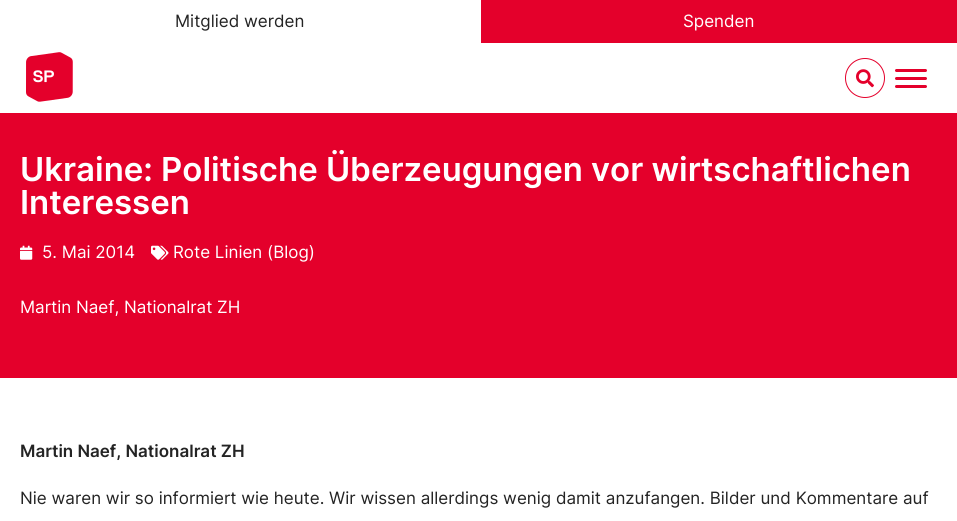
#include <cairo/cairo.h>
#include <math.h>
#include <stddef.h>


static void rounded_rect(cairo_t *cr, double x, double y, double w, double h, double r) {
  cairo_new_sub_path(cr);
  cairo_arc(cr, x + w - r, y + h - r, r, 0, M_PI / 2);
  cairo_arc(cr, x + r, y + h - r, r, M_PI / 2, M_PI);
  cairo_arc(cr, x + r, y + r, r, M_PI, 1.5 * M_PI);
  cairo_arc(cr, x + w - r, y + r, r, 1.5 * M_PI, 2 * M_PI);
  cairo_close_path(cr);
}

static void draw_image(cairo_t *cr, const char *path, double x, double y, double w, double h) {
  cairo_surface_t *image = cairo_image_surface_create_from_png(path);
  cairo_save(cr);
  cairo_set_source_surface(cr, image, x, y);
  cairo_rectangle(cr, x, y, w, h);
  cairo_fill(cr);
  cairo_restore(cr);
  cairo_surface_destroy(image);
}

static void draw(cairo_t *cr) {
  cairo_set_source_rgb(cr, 1, 1, 1);
  cairo_paint(cr);
  cairo_set_source_rgb(cr, 228 / 255.0, 0, 43 / 255.0);
  cairo_rectangle(cr, 481, 0, 476, 43);
  cairo_fill(cr);
  draw_image(cr, "images/1.png", 26, 52, 47, 50);
  cairo_arc(cr, 865, 78, 19.5, 0, 2 * M_PI);
  cairo_set_line_width(cr, 1);
  cairo_stroke(cr);
  draw_image(cr, "images/2.png", 856, 69, 18, 19);
  rounded_rect(cr, 895, 69, 32, 3, 1.5);
  cairo_fill(cr);
  rounded_rect(cr, 895, 77, 32, 3, 1.5);
  cairo_fill(cr);
  rounded_rect(cr, 895, 85, 32, 3, 1.5);
  cairo_fill(cr);
  cairo_rectangle(cr, 0, 113, 957, 265);
  cairo_fill(cr);
  draw_image(cr, "images/3.png", 20, 245, 13, 15);
  draw_image(cr, "images/4.png", 151, 245, 18, 15);
  cairo_select_font_face(cr, "Inter", CAIRO_FONT_SLANT_NORMAL, CAIRO_FONT_WEIGHT_NORMAL);
  cairo_set_font_size(cr, 17);
  cairo_set_source_rgb(cr, 36 / 255.0, 36 / 255.0, 36 / 255.0);
  cairo_move_to(cr, 175, 27);
  cairo_show_text(cr, "Mitglied werden");
  cairo_set_source_rgb(cr, 1, 1, 1);
  cairo_move_to(cr, 683, 27);
  cairo_show_text(cr, "Spenden");
  cairo_select_font_face(cr, "Inter SemiBold", CAIRO_FONT_SLANT_NORMAL, CAIRO_FONT_WEIGHT_NORMAL);
  cairo_set_font_size(cr, 33);
  cairo_move_to(cr, 20, 181);
  cairo_show_text(cr, "Ukraine: Politische Überzeugungen vor wirtschaftlichen");
  cairo_move_to(cr, 20, 214);
  cairo_show_text(cr, "Interessen");
  cairo_select_font_face(cr, "Inter", CAIRO_FONT_SLANT_NORMAL, CAIRO_FONT_WEIGHT_NORMAL);
  cairo_set_font_size(cr, 17);
  cairo_move_to(cr, 42, 258);
  cairo_show_text(cr, "5. Mai 2014");
  cairo_move_to(cr, 173, 258);
  cairo_show_text(cr, "Rote Linien (Blog)");
  cairo_move_to(cr, 20, 313);
  cairo_show_text(cr, "Martin Naef, Nationalrat ZH");
  cairo_select_font_face(cr, "Inter SemiBold", CAIRO_FONT_SLANT_NORMAL, CAIRO_FONT_WEIGHT_NORMAL);
  cairo_set_source_rgb(cr, 36 / 255.0, 36 / 255.0, 36 / 255.0);
  cairo_move_to(cr, 20, 457);
  cairo_show_text(cr, "Martin Naef, Nationalrat ZH");
  cairo_select_font_face(cr, "Inter", CAIRO_FONT_SLANT_NORMAL, CAIRO_FONT_WEIGHT_NORMAL);
  cairo_move_to(cr, 20, 504);
  cairo_show_text(cr, "Nie waren wir so informiert wie heute. Wir wissen allerdings wenig damit anzufangen. Bilder und Kommentare auf");
}

int main(void) {
  cairo_surface_t *surface = cairo_image_surface_create(CAIRO_FORMAT_RGB24, 957, 521);
  cairo_t *cr = cairo_create(surface);
  cairo_font_options_t *options = cairo_font_options_create();
  cairo_font_options_set_hint_metrics(options, CAIRO_HINT_METRICS_OFF);
  cairo_font_options_set_hint_style(options, CAIRO_HINT_STYLE_NONE);
  cairo_set_font_options(cr, options);
  cairo_set_miter_limit(cr, 4);
  draw(cr);
  cairo_surface_write_to_png(surface, "out.png");
  cairo_font_options_destroy(options);
  cairo_destroy(cr);
  cairo_surface_destroy(surface);
  return 0;
}
